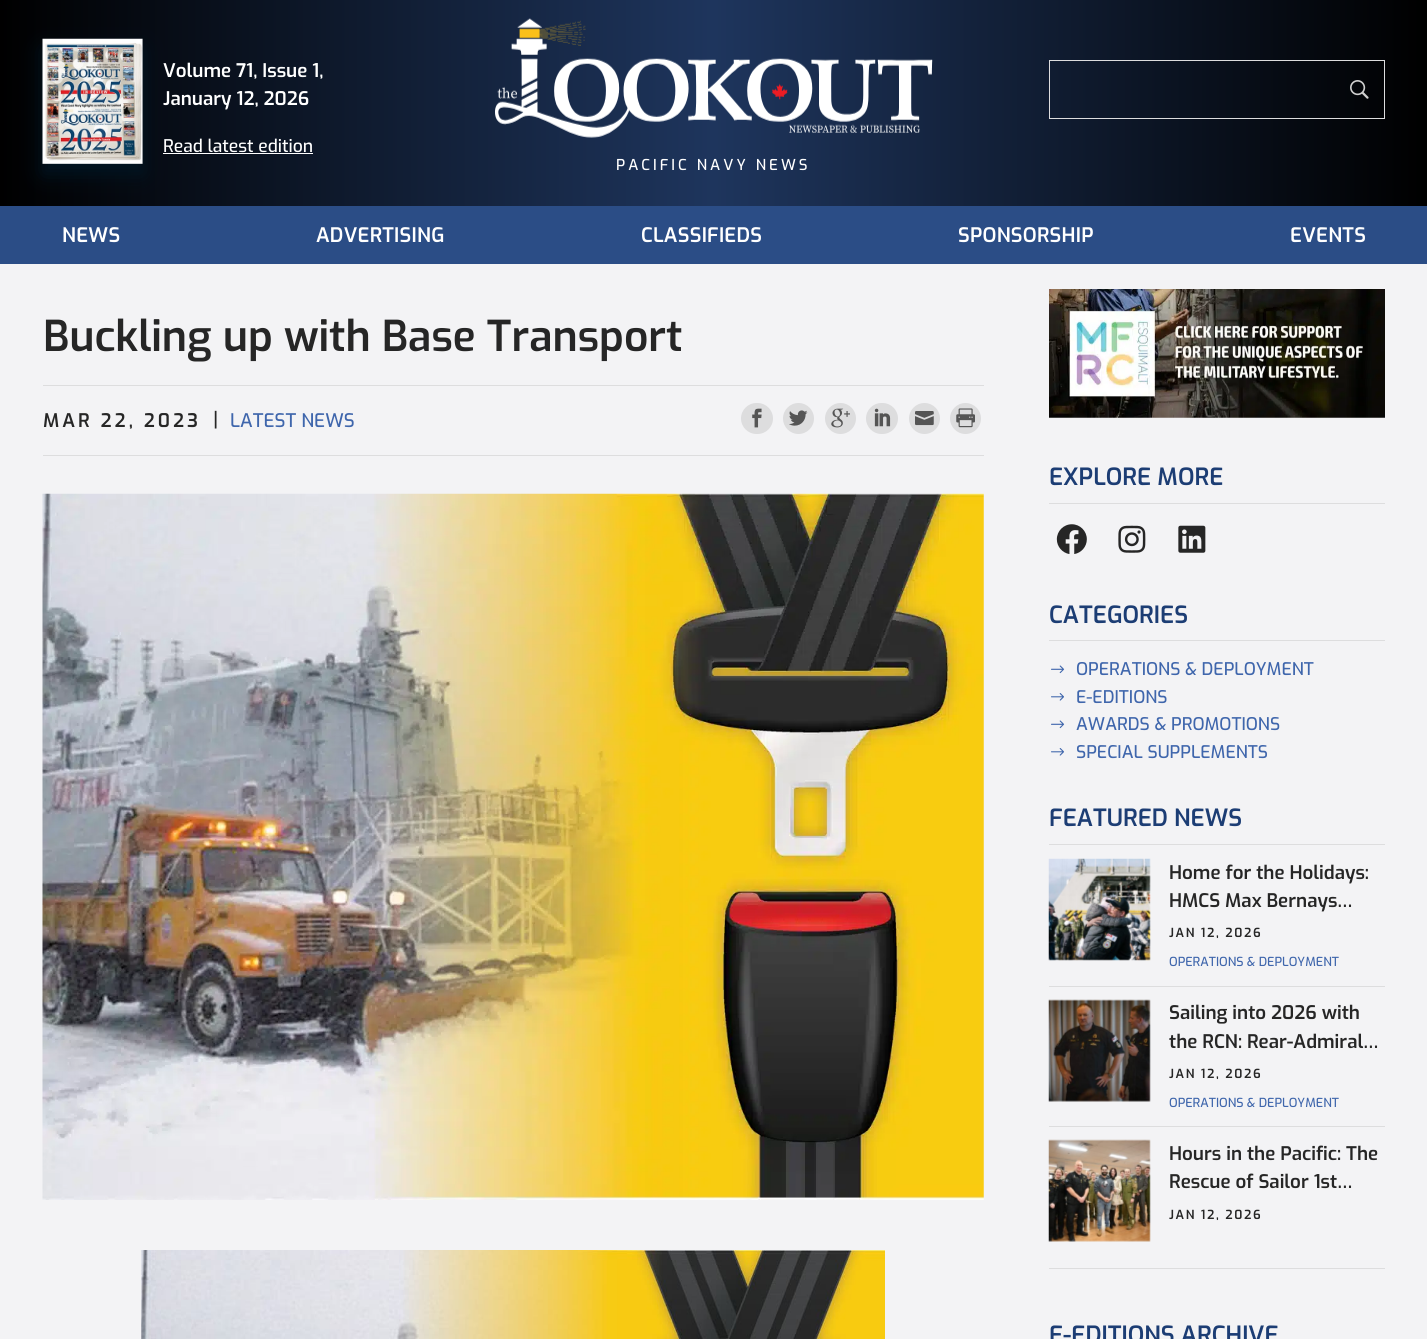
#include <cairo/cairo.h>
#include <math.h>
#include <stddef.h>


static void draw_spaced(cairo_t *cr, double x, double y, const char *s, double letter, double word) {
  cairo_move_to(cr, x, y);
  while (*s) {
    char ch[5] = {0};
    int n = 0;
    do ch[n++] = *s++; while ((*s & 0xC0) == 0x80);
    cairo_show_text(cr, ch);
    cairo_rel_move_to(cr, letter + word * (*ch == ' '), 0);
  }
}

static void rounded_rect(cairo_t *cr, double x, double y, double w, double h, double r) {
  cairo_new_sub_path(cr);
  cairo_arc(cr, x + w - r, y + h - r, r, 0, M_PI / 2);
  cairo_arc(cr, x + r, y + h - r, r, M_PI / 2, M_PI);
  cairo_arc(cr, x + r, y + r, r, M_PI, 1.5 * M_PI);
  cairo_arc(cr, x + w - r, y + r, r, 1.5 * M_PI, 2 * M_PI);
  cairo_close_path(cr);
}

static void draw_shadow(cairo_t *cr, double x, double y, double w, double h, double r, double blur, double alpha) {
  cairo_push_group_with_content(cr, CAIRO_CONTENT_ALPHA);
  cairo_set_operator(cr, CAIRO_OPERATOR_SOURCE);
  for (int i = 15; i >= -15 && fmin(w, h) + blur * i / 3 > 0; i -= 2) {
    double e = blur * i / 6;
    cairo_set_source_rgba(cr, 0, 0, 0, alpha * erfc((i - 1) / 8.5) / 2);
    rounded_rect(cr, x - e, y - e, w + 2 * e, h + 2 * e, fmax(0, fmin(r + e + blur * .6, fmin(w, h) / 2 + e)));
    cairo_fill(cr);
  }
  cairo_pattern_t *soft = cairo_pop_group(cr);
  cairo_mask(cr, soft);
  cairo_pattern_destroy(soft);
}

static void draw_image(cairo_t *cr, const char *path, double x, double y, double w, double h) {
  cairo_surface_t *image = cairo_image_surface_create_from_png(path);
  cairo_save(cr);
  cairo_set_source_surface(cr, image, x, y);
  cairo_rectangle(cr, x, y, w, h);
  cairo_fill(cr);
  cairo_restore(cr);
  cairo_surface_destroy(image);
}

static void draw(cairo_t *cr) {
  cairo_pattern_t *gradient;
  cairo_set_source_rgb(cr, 243 / 255.0, 243 / 255.0, 245 / 255.0);
  cairo_paint(cr);
  gradient = cairo_pattern_create_linear(0, 103, 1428, 103);
  cairo_pattern_add_color_stop_rgba(gradient, 0, 0, 0, 0, 1);
  cairo_pattern_add_color_stop_rgba(gradient, 0.5, 30 / 255.0, 53 / 255.0, 93 / 255.0, 1);
  cairo_pattern_add_color_stop_rgba(gradient, 1, 0, 0, 0, 1);
  cairo_set_source(cr, gradient);
  cairo_pattern_destroy(gradient);
  cairo_rectangle(cr, 0, 0, 1427, 206);
  cairo_fill(cr);
  cairo_set_source_rgb(cr, 0, 21 / 255.0, 35 / 255.0);
  draw_shadow(cr, 43, 49, 100, 125, 0, 10, 1);
  draw_image(cr, "images/1.png", 42, 38, 101, 126);
  cairo_set_source_rgb(cr, 1, 1, 1);
  cairo_rectangle(cr, 163, 153, 150, 1);
  cairo_fill(cr);
  cairo_rectangle(cr, 1049.5, 60.5, 335, 58);
  cairo_set_source_rgb(cr, 221 / 255.0, 221 / 255.0, 222 / 255.0);
  cairo_set_line_width(cr, 1);
  cairo_stroke(cr);
  draw_image(cr, "images/2.png", 1350, 80, 19, 19);
  draw_image(cr, "images/3.png", 495, 18, 438, 120);
  cairo_set_source_rgb(cr, 43 / 255.0, 77 / 255.0, 134 / 255.0);
  cairo_rectangle(cr, 0, 206, 1427, 58);
  cairo_fill(cr);
  cairo_set_source_rgb(cr, 221 / 255.0, 221 / 255.0, 222 / 255.0);
  cairo_rectangle(cr, 43, 385, 941, 1);
  cairo_fill(cr);
  cairo_rectangle(cr, 43, 455, 941, 1);
  cairo_fill(cr);
  rounded_rect(cr, 741, 403, 32, 31, 15.5);
  cairo_fill(cr);
  draw_image(cr, "images/4.png", 752, 408, 10, 20);
  cairo_arc(cr, 798.5, 418.5, 15.5, 0, 2 * M_PI);
  cairo_fill(cr);
  draw_image(cr, "images/5.png", 789, 410, 19, 16);
  cairo_arc(cr, 840.5, 418.5, 15.5, 0, 2 * M_PI);
  cairo_fill(cr);
  draw_image(cr, "images/6.png", 831, 408, 19, 20);
  rounded_rect(cr, 866, 403, 32, 31, 15.5);
  cairo_fill(cr);
  draw_image(cr, "images/7.png", 874, 408, 17, 19);
  cairo_arc(cr, 924.5, 418.5, 15.5, 0, 2 * M_PI);
  cairo_fill(cr);
  draw_image(cr, "images/8.png", 915, 411, 19, 15);
  cairo_arc(cr, 965.5, 418.5, 15.5, 0, 2 * M_PI);
  cairo_fill(cr);
  draw_image(cr, "images/9.png", 956, 408, 19, 20);
  draw_image(cr, "images/10.png", 42, 493, 942, 707);
  draw_image(cr, "images/11.png", 141, 1250, 744, 89);
  draw_image(cr, "images/12.png", 1049, 289, 336, 129);
  cairo_rectangle(cr, 1049, 503, 336, 1);
  cairo_fill(cr);
  draw_image(cr, "images/13.png", 1056, 524, 31, 30);
  draw_image(cr, "images/14.png", 1118, 525, 28, 28);
  draw_image(cr, "images/15.png", 1178, 525, 28, 28);
  cairo_rectangle(cr, 1049, 640, 336, 1);
  cairo_fill(cr);
  draw_image(cr, "images/16.png", 1051, 665, 14, 9);
  draw_image(cr, "images/17.png", 1051, 693, 13, 8);
  draw_image(cr, "images/16.png", 1051, 720, 14, 9);
  draw_image(cr, "images/17.png", 1051, 748, 13, 8);
  cairo_rectangle(cr, 1049, 844, 336, 1);
  cairo_fill(cr);
  cairo_rectangle(cr, 1049, 986, 336, 1);
  cairo_fill(cr);
  draw_image(cr, "images/18.png", 1048, 858, 103, 103);
  cairo_rectangle(cr, 1049, 1126, 336, 1);
  cairo_fill(cr);
  draw_image(cr, "images/19.png", 1048, 999, 103, 103);
  cairo_rectangle(cr, 1049, 1268, 336, 1);
  cairo_fill(cr);
  draw_image(cr, "images/20.png", 1048, 1139, 103, 103);
  cairo_select_font_face(cr, "Exo SemiBold", CAIRO_FONT_SLANT_NORMAL, CAIRO_FONT_WEIGHT_NORMAL);
  cairo_set_font_size(cr, 18.75);
  cairo_set_source_rgb(cr, 1, 1, 1);
  cairo_move_to(cr, 163, 77);
  cairo_show_text(cr, "Volume 71, Issue 1,");
  cairo_move_to(cr, 163, 105);
  cairo_show_text(cr, "January 12, 2026");
  cairo_select_font_face(cr, "Exo Medium", CAIRO_FONT_SLANT_NORMAL, CAIRO_FONT_WEIGHT_NORMAL);
  cairo_set_font_size(cr, 17.5);
  cairo_move_to(cr, 163, 152);
  cairo_show_text(cr, "Read latest edition");
  cairo_set_font_size(cr, 15);
  draw_spaced(cr, 616, 170, "PACIFIC NAVY NEWS", 3, 0);
  cairo_select_font_face(cr, "Exo SemiBold", CAIRO_FONT_SLANT_NORMAL, CAIRO_FONT_WEIGHT_NORMAL);
  cairo_set_font_size(cr, 20);
  draw_spaced(cr, 62, 242, "NEWS", 0.25, 0);
  draw_spaced(cr, 316, 242, "ADVERTISING", 0.25, 0);
  draw_spaced(cr, 641, 242, "CLASSIFIEDS", 0.25, 0);
  draw_spaced(cr, 958, 242, "SPONSORSHIP", 0.25, 0);
  draw_spaced(cr, 1290, 242, "EVENTS", 0.25, 0);
  cairo_set_font_size(cr, 42.5);
  cairo_set_source_rgb(cr, 38 / 255.0, 38 / 255.0, 38 / 255.0);
  cairo_move_to(cr, 43, 351);
  cairo_show_text(cr, "Buckling up with Base Transport");
  cairo_set_font_size(cr, 18.75);
  draw_spaced(cr, 43, 427, "MAR 22, 2023", 3, 0);
  cairo_select_font_face(cr, "Exo Medium", CAIRO_FONT_SLANT_NORMAL, CAIRO_FONT_WEIGHT_NORMAL);
  cairo_set_font_size(cr, 21);
  cairo_move_to(cr, 213, 427);
  cairo_show_text(cr, "|");
  cairo_set_font_size(cr, 18.75);
  cairo_set_source_rgb(cr, 63 / 255.0, 102 / 255.0, 172 / 255.0);
  cairo_move_to(cr, 230, 427);
  cairo_show_text(cr, "LATEST NEWS");
  cairo_select_font_face(cr, "Exo SemiBold", CAIRO_FONT_SLANT_NORMAL, CAIRO_FONT_WEIGHT_NORMAL);
  cairo_set_font_size(cr, 23.75);
  cairo_set_source_rgb(cr, 28 / 255.0, 61 / 255.0, 116 / 255.0);
  cairo_move_to(cr, 1049, 485);
  cairo_show_text(cr, "EXPLORE MORE");
  cairo_move_to(cr, 1049, 623);
  cairo_show_text(cr, "CATEGORIES");
  cairo_select_font_face(cr, "Exo Medium", CAIRO_FONT_SLANT_NORMAL, CAIRO_FONT_WEIGHT_NORMAL);
  cairo_set_font_size(cr, 17.5);
  cairo_set_source_rgb(cr, 63 / 255.0, 102 / 255.0, 172 / 255.0);
  cairo_move_to(cr, 1076, 675);
  cairo_show_text(cr, "OPERATIONS & DEPLOYMENT");
  cairo_move_to(cr, 1076, 703);
  cairo_show_text(cr, "E-EDITIONS");
  cairo_move_to(cr, 1076, 730);
  cairo_show_text(cr, "AWARDS & PROMOTIONS");
  cairo_move_to(cr, 1076, 758);
  cairo_show_text(cr, "SPECIAL SUPPLEMENTS");
  cairo_select_font_face(cr, "Exo SemiBold", CAIRO_FONT_SLANT_NORMAL, CAIRO_FONT_WEIGHT_NORMAL);
  cairo_set_font_size(cr, 23.75);
  cairo_set_source_rgb(cr, 28 / 255.0, 61 / 255.0, 116 / 255.0);
  cairo_move_to(cr, 1049, 826);
  cairo_show_text(cr, "FEATURED NEWS");
  cairo_set_font_size(cr, 18.75);
  cairo_set_source_rgb(cr, 38 / 255.0, 38 / 255.0, 38 / 255.0);
  cairo_move_to(cr, 1169, 879);
  cairo_show_text(cr, "Home for the Holidays:");
  cairo_move_to(cr, 1169, 907);
  cairo_show_text(cr, "HMCS Max Bernays…");
  cairo_set_font_size(cr, 12.5);
  draw_spaced(cr, 1169, 937, "JAN 12, 2026", 1.6, 0);
  cairo_select_font_face(cr, "Exo Medium", CAIRO_FONT_SLANT_NORMAL, CAIRO_FONT_WEIGHT_NORMAL);
  cairo_set_source_rgb(cr, 63 / 255.0, 102 / 255.0, 172 / 255.0);
  cairo_move_to(cr, 1169, 966);
  cairo_show_text(cr, "OPERATIONS & DEPLOYMENT");
  cairo_select_font_face(cr, "Exo SemiBold", CAIRO_FONT_SLANT_NORMAL, CAIRO_FONT_WEIGHT_NORMAL);
  cairo_set_font_size(cr, 18.75);
  cairo_set_source_rgb(cr, 38 / 255.0, 38 / 255.0, 38 / 255.0);
  cairo_move_to(cr, 1169, 1019);
  cairo_show_text(cr, "Sailing into 2026 with");
  cairo_move_to(cr, 1169, 1048);
  cairo_show_text(cr, "the RCN: Rear-Admiral…");
  cairo_set_font_size(cr, 12.5);
  draw_spaced(cr, 1169, 1078, "JAN 12, 2026", 1.6, 0);
  cairo_select_font_face(cr, "Exo Medium", CAIRO_FONT_SLANT_NORMAL, CAIRO_FONT_WEIGHT_NORMAL);
  cairo_set_source_rgb(cr, 63 / 255.0, 102 / 255.0, 172 / 255.0);
  cairo_move_to(cr, 1169, 1107);
  cairo_show_text(cr, "OPERATIONS & DEPLOYMENT");
  cairo_select_font_face(cr, "Exo SemiBold", CAIRO_FONT_SLANT_NORMAL, CAIRO_FONT_WEIGHT_NORMAL);
  cairo_set_font_size(cr, 18.75);
  cairo_set_source_rgb(cr, 38 / 255.0, 38 / 255.0, 38 / 255.0);
  cairo_move_to(cr, 1169, 1160);
  cairo_show_text(cr, "Hours in the Pacific: The");
  cairo_move_to(cr, 1169, 1188);
  cairo_show_text(cr, "Rescue of Sailor 1st…");
  cairo_set_font_size(cr, 12.5);
  draw_spaced(cr, 1169, 1219, "JAN 12, 2026", 1.6, 0);
  cairo_set_font_size(cr, 23.75);
  cairo_set_source_rgb(cr, 28 / 255.0, 61 / 255.0, 116 / 255.0);
  cairo_move_to(cr, 1049, 1343);
  cairo_show_text(cr, "E-EDITIONS ARCHIVE");
}

int main(void) {
  cairo_surface_t *surface = cairo_image_surface_create(CAIRO_FORMAT_RGB24, 1427, 1339);
  cairo_t *cr = cairo_create(surface);
  cairo_font_options_t *options = cairo_font_options_create();
  cairo_font_options_set_hint_metrics(options, CAIRO_HINT_METRICS_OFF);
  cairo_font_options_set_hint_style(options, CAIRO_HINT_STYLE_NONE);
  cairo_set_font_options(cr, options);
  cairo_set_miter_limit(cr, 4);
  draw(cr);
  cairo_surface_write_to_png(surface, "out.png");
  cairo_font_options_destroy(options);
  cairo_destroy(cr);
  cairo_surface_destroy(surface);
  return 0;
}
